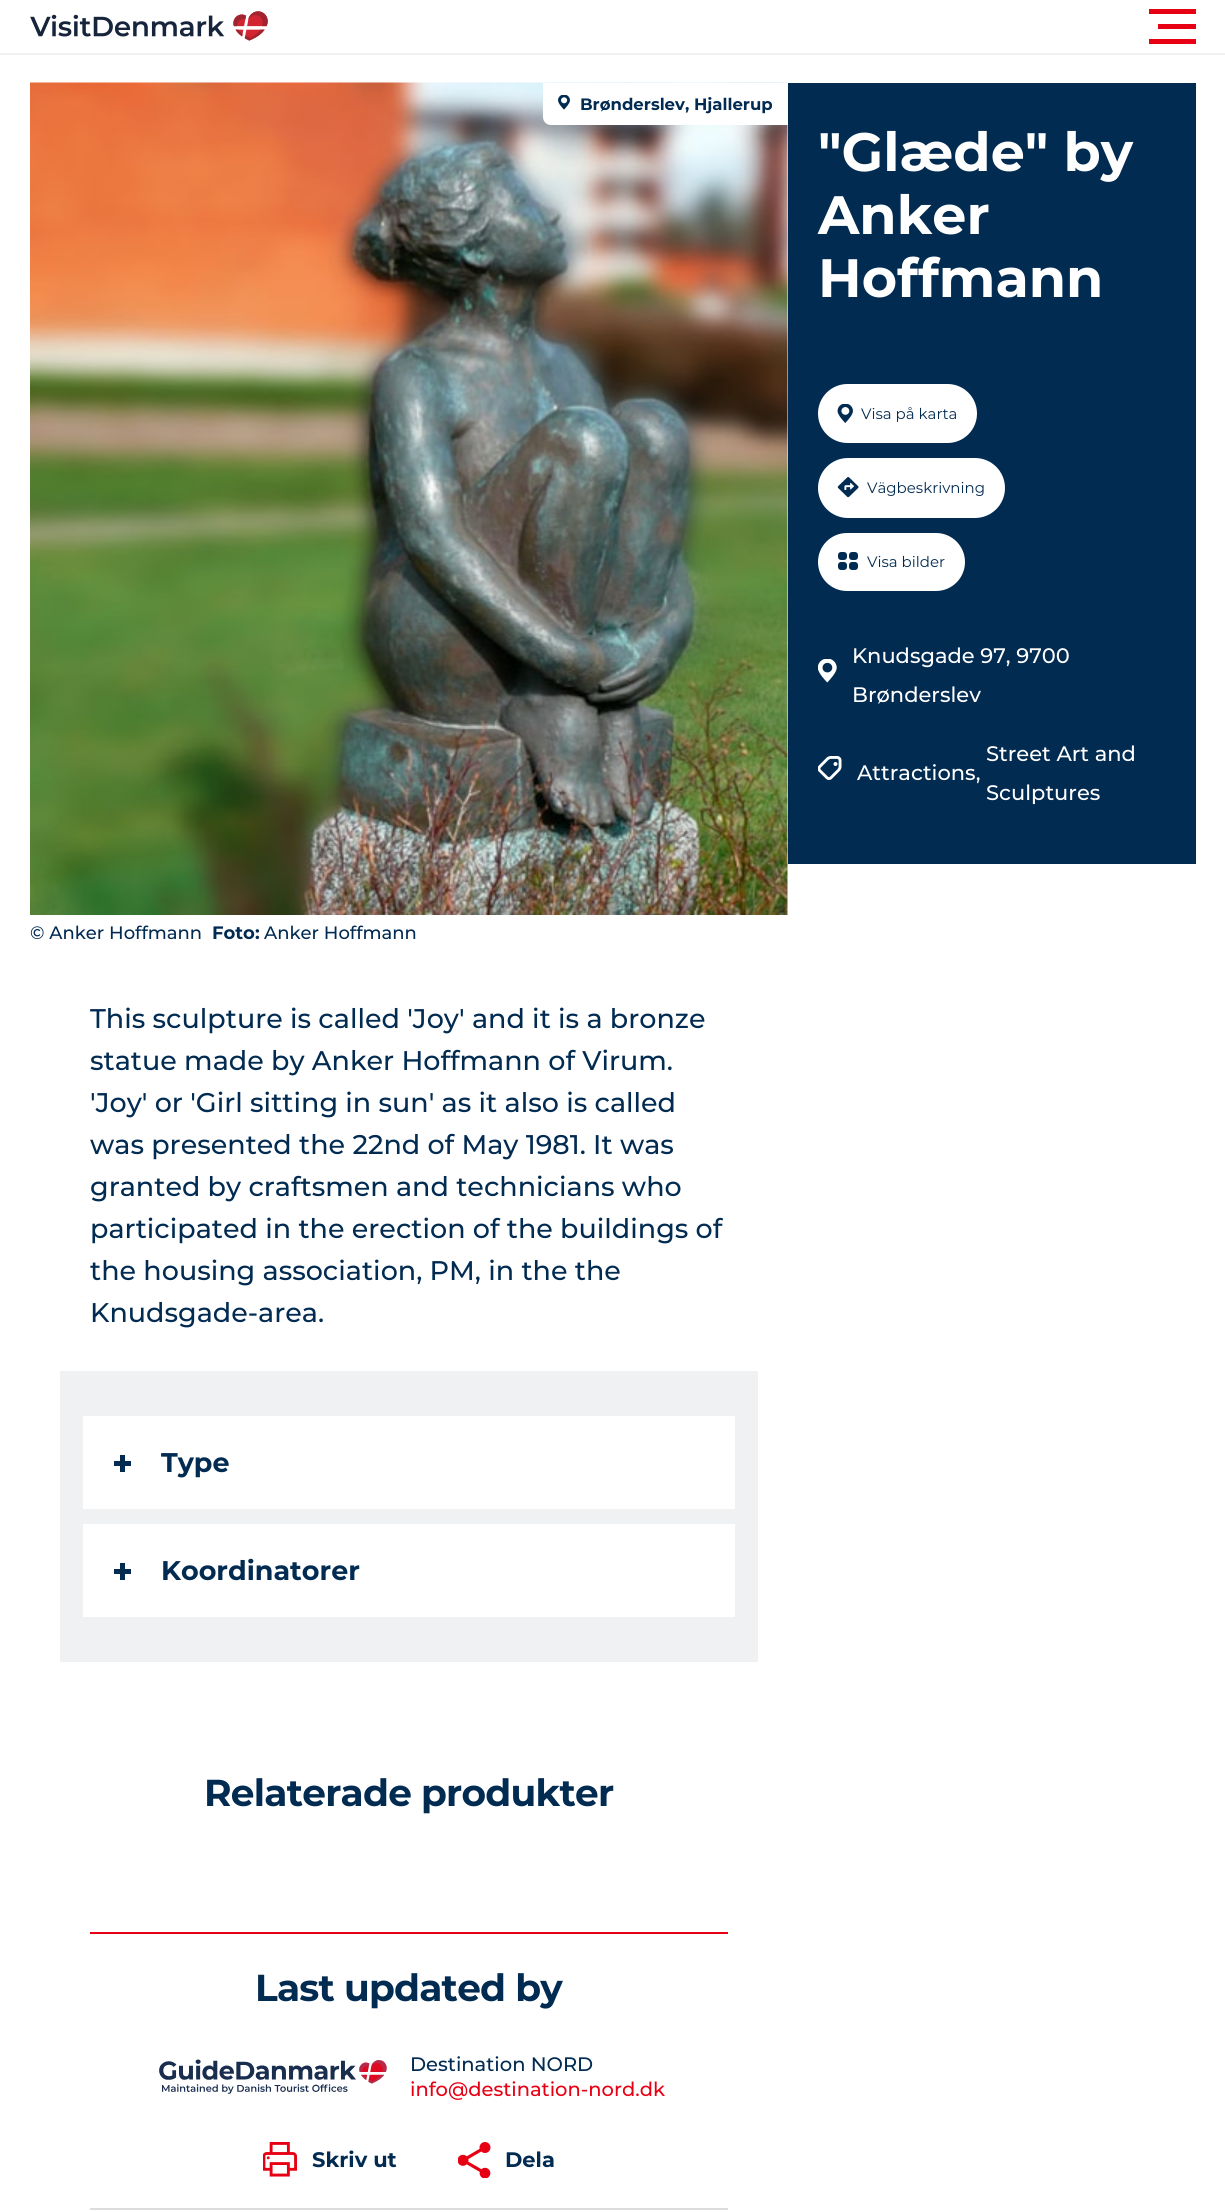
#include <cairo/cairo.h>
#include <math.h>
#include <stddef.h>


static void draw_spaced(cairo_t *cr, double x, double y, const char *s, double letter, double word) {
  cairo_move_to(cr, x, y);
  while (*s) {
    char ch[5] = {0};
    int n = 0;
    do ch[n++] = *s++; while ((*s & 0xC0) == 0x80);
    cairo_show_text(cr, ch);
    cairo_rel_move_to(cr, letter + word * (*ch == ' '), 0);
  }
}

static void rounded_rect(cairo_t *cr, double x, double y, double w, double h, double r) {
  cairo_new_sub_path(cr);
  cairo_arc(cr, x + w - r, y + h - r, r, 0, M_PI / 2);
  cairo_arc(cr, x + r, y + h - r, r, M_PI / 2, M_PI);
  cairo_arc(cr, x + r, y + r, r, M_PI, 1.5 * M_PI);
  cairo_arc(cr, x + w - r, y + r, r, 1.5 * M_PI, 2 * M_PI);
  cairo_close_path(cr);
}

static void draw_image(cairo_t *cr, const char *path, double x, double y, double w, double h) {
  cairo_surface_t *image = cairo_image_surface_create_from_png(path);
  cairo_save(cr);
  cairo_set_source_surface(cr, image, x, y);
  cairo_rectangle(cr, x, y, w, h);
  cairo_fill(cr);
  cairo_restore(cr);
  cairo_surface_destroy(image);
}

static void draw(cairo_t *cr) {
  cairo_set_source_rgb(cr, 1, 1, 1);
  cairo_paint(cr);
  cairo_set_source_rgb(cr, 240 / 255.0, 241 / 255.0, 243 / 255.0);
  cairo_rectangle(cr, 0, 53, 1225, 2);
  cairo_fill(cr);
  draw_image(cr, "images/1.png", 30, 11, 238, 30);
  cairo_set_source_rgb(cr, 231 / 255.0, 0, 19 / 255.0);
  cairo_rectangle(cr, 1149, 9, 47, 5);
  cairo_fill(cr);
  cairo_rectangle(cr, 1158, 24, 38, 5);
  cairo_fill(cr);
  cairo_rectangle(cr, 1149, 39, 47, 5);
  cairo_fill(cr);
  draw_image(cr, "images/2.png", 30, 82, 758, 833);
  cairo_set_source_rgb(cr, 1, 1, 1);
  cairo_new_path(cr);
  cairo_move_to(cr, 543, 83);
  cairo_line_to(cr, 788, 83);
  cairo_line_to(cr, 788, 125);
  cairo_line_to(cr, 551, 125);
  cairo_curve_to(cr, 546.5, 125, 543, 121.5, 543, 117);
  cairo_close_path(cr);
  cairo_fill(cr);
  draw_image(cr, "images/3.png", 558, 95, 12, 15);
  cairo_set_source_rgb(cr, 2 / 255.0, 43 / 255.0, 82 / 255.0);
  cairo_rectangle(cr, 788, 83, 408, 781);
  cairo_fill(cr);
  cairo_set_source_rgb(cr, 1, 1, 1);
  rounded_rect(cr, 818, 384, 159, 59, 29.5);
  cairo_fill(cr);
  draw_image(cr, "images/4.png", 837, 404, 16, 19);
  rounded_rect(cr, 818, 458, 187, 60, 30);
  cairo_fill(cr);
  draw_image(cr, "images/5.png", 837, 477, 22, 21);
  rounded_rect(cr, 818, 533, 147, 58, 29);
  cairo_fill(cr);
  cairo_set_source_rgb(cr, 2 / 255.0, 43 / 255.0, 82 / 255.0);
  rounded_rect(cr, 849, 552, 9, 8, 3);
  cairo_fill(cr);
  rounded_rect(cr, 849, 562, 9, 8, 3);
  cairo_fill(cr);
  rounded_rect(cr, 838, 552, 9, 8, 3);
  cairo_fill(cr);
  rounded_rect(cr, 838, 562, 9, 8, 3);
  cairo_fill(cr);
  draw_image(cr, "images/6.png", 818, 659, 19, 24);
  draw_image(cr, "images/7.png", 818, 756, 24, 24);
  cairo_set_source_rgb(cr, 239 / 255.0, 241 / 255.0, 243 / 255.0);
  cairo_rectangle(cr, 60, 1371, 698, 291);
  cairo_fill(cr);
  cairo_set_source_rgb(cr, 1, 1, 1);
  cairo_rectangle(cr, 83, 1416, 652, 93);
  cairo_fill(cr);
  cairo_set_source_rgb(cr, 2 / 255.0, 43 / 255.0, 82 / 255.0);
  cairo_rectangle(cr, 114, 1461, 17, 5);
  cairo_fill(cr);
  cairo_rectangle(cr, 120, 1455, 5, 17);
  cairo_fill(cr);
  cairo_set_source_rgb(cr, 1, 1, 1);
  cairo_rectangle(cr, 83, 1524, 652, 93);
  cairo_fill(cr);
  cairo_set_source_rgb(cr, 2 / 255.0, 43 / 255.0, 82 / 255.0);
  cairo_rectangle(cr, 114, 1569, 17, 5);
  cairo_fill(cr);
  cairo_rectangle(cr, 120, 1563, 5, 17);
  cairo_fill(cr);
  cairo_set_source_rgb(cr, 231 / 255.0, 0, 19 / 255.0);
  cairo_rectangle(cr, 90, 1932, 638, 2);
  cairo_fill(cr);
  cairo_set_source_rgb(cr, 222 / 255.0, 220 / 255.0, 218 / 255.0);
  cairo_rectangle(cr, 90, 2208, 638, 2);
  cairo_fill(cr);
  draw_image(cr, "images/8.png", 159, 2059, 228, 35);
  draw_image(cr, "images/9.png", 263, 2142, 34, 35);
  draw_image(cr, "images/10.png", 458, 2142, 33, 36);
  cairo_select_font_face(cr, "Montserrat", CAIRO_FONT_SLANT_NORMAL, CAIRO_FONT_WEIGHT_BOLD);
  cairo_set_font_size(cr, 16.5);
  cairo_set_source_rgb(cr, 2 / 255.0, 43 / 255.0, 82 / 255.0);
  cairo_move_to(cr, 580, 110);
  cairo_show_text(cr, "Brønderslev, Hjallerup");
  cairo_select_font_face(cr, "Montserrat Medium", CAIRO_FONT_SLANT_NORMAL, CAIRO_FONT_WEIGHT_NORMAL);
  cairo_set_font_size(cr, 18);
  cairo_move_to(cr, 30, 939);
  cairo_show_text(cr, "© Anker Hoffmann");
  cairo_select_font_face(cr, "Montserrat", CAIRO_FONT_SLANT_NORMAL, CAIRO_FONT_WEIGHT_BOLD);
  cairo_move_to(cr, 212, 939);
  cairo_show_text(cr, "Foto:");
  cairo_select_font_face(cr, "Montserrat Medium", CAIRO_FONT_SLANT_NORMAL, CAIRO_FONT_WEIGHT_NORMAL);
  cairo_move_to(cr, 264, 939);
  cairo_show_text(cr, "Anker Hoffmann");
  cairo_select_font_face(cr, "Montserrat", CAIRO_FONT_SLANT_NORMAL, CAIRO_FONT_WEIGHT_BOLD);
  cairo_set_font_size(cr, 54);
  cairo_set_source_rgb(cr, 1, 1, 1);
  cairo_move_to(cr, 818, 171);
  cairo_show_text(cr, "\"Glæde\" by");
  cairo_move_to(cr, 818, 234);
  cairo_show_text(cr, "Anker");
  cairo_move_to(cr, 818, 297);
  cairo_show_text(cr, "Hoffmann");
  cairo_select_font_face(cr, "Montserrat", CAIRO_FONT_SLANT_NORMAL, CAIRO_FONT_WEIGHT_NORMAL);
  cairo_set_font_size(cr, 15);
  cairo_set_source_rgb(cr, 2 / 255.0, 43 / 255.0, 82 / 255.0);
  cairo_move_to(cr, 861, 419);
  cairo_show_text(cr, "Visa på karta");
  cairo_move_to(cr, 867, 493);
  cairo_show_text(cr, "Vägbeskrivning");
  cairo_move_to(cr, 867, 567);
  cairo_show_text(cr, "Visa bilder");
  cairo_select_font_face(cr, "Montserrat Medium", CAIRO_FONT_SLANT_NORMAL, CAIRO_FONT_WEIGHT_NORMAL);
  cairo_set_font_size(cr, 21);
  cairo_set_source_rgb(cr, 1, 1, 1);
  cairo_move_to(cr, 852, 663);
  cairo_show_text(cr, "Knudsgade 97, 9700");
  cairo_move_to(cr, 852, 702);
  cairo_show_text(cr, "Brønderslev");
  cairo_move_to(cr, 857, 780);
  cairo_show_text(cr, "Attractions,");
  cairo_move_to(cr, 986, 761);
  cairo_show_text(cr, "Street Art and");
  cairo_move_to(cr, 986, 800);
  cairo_show_text(cr, "Sculptures");
  cairo_set_font_size(cr, 27);
  cairo_set_source_rgb(cr, 2 / 255.0, 43 / 255.0, 82 / 255.0);
  cairo_move_to(cr, 90, 1028);
  cairo_show_text(cr, "This sculpture is called 'Joy' and it is a bronze");
  cairo_move_to(cr, 90, 1070);
  cairo_show_text(cr, "statue made by Anker Hoffmann of Virum.");
  cairo_move_to(cr, 90, 1112);
  cairo_show_text(cr, "'Joy' or 'Girl sitting in sun' as it also is called");
  cairo_move_to(cr, 90, 1154);
  cairo_show_text(cr, "was presented the 22nd of May 1981. It was");
  cairo_move_to(cr, 90, 1196);
  cairo_show_text(cr, "granted by craftsmen and technicians who");
  cairo_move_to(cr, 90, 1238);
  cairo_show_text(cr, "participated in the erection of the buildings of");
  cairo_move_to(cr, 90, 1280);
  cairo_show_text(cr, "the housing association, PM, in the the");
  cairo_move_to(cr, 90, 1322);
  cairo_show_text(cr, "Knudsgade-area.");
  cairo_select_font_face(cr, "Montserrat", CAIRO_FONT_SLANT_NORMAL, CAIRO_FONT_WEIGHT_BOLD);
  cairo_move_to(cr, 161, 1472);
  cairo_show_text(cr, "Type");
  cairo_move_to(cr, 161, 1580);
  cairo_show_text(cr, "Koordinatorer");
  cairo_set_font_size(cr, 37.5);
  draw_spaced(cr, 204, 1806, "Relaterade produkter", -0.75, 0);
  draw_spaced(cr, 255, 2001, "Last updated by", -0.75, 0);
  cairo_select_font_face(cr, "Montserrat Medium", CAIRO_FONT_SLANT_NORMAL, CAIRO_FONT_WEIGHT_NORMAL);
  cairo_set_font_size(cr, 19.5);
  cairo_move_to(cr, 410, 2071);
  cairo_show_text(cr, "Destination NORD");
  cairo_set_source_rgb(cr, 231 / 255.0, 0, 19 / 255.0);
  cairo_move_to(cr, 410, 2096);
  cairo_show_text(cr, "info@destination-nord.dk");
  cairo_select_font_face(cr, "Montserrat", CAIRO_FONT_SLANT_NORMAL, CAIRO_FONT_WEIGHT_BOLD);
  cairo_set_font_size(cr, 21);
  cairo_set_source_rgb(cr, 2 / 255.0, 43 / 255.0, 82 / 255.0);
  cairo_move_to(cr, 312, 2167);
  cairo_show_text(cr, "Skriv ut");
  cairo_move_to(cr, 505, 2167);
  cairo_show_text(cr, "Dela");
}

int main(void) {
  cairo_surface_t *surface = cairo_image_surface_create(CAIRO_FORMAT_RGB24, 1225, 2212);
  cairo_t *cr = cairo_create(surface);
  cairo_font_options_t *options = cairo_font_options_create();
  cairo_font_options_set_hint_metrics(options, CAIRO_HINT_METRICS_OFF);
  cairo_font_options_set_hint_style(options, CAIRO_HINT_STYLE_NONE);
  cairo_set_font_options(cr, options);
  cairo_set_miter_limit(cr, 4);
  draw(cr);
  cairo_surface_write_to_png(surface, "out.png");
  cairo_font_options_destroy(options);
  cairo_destroy(cr);
  cairo_surface_destroy(surface);
  return 0;
}
